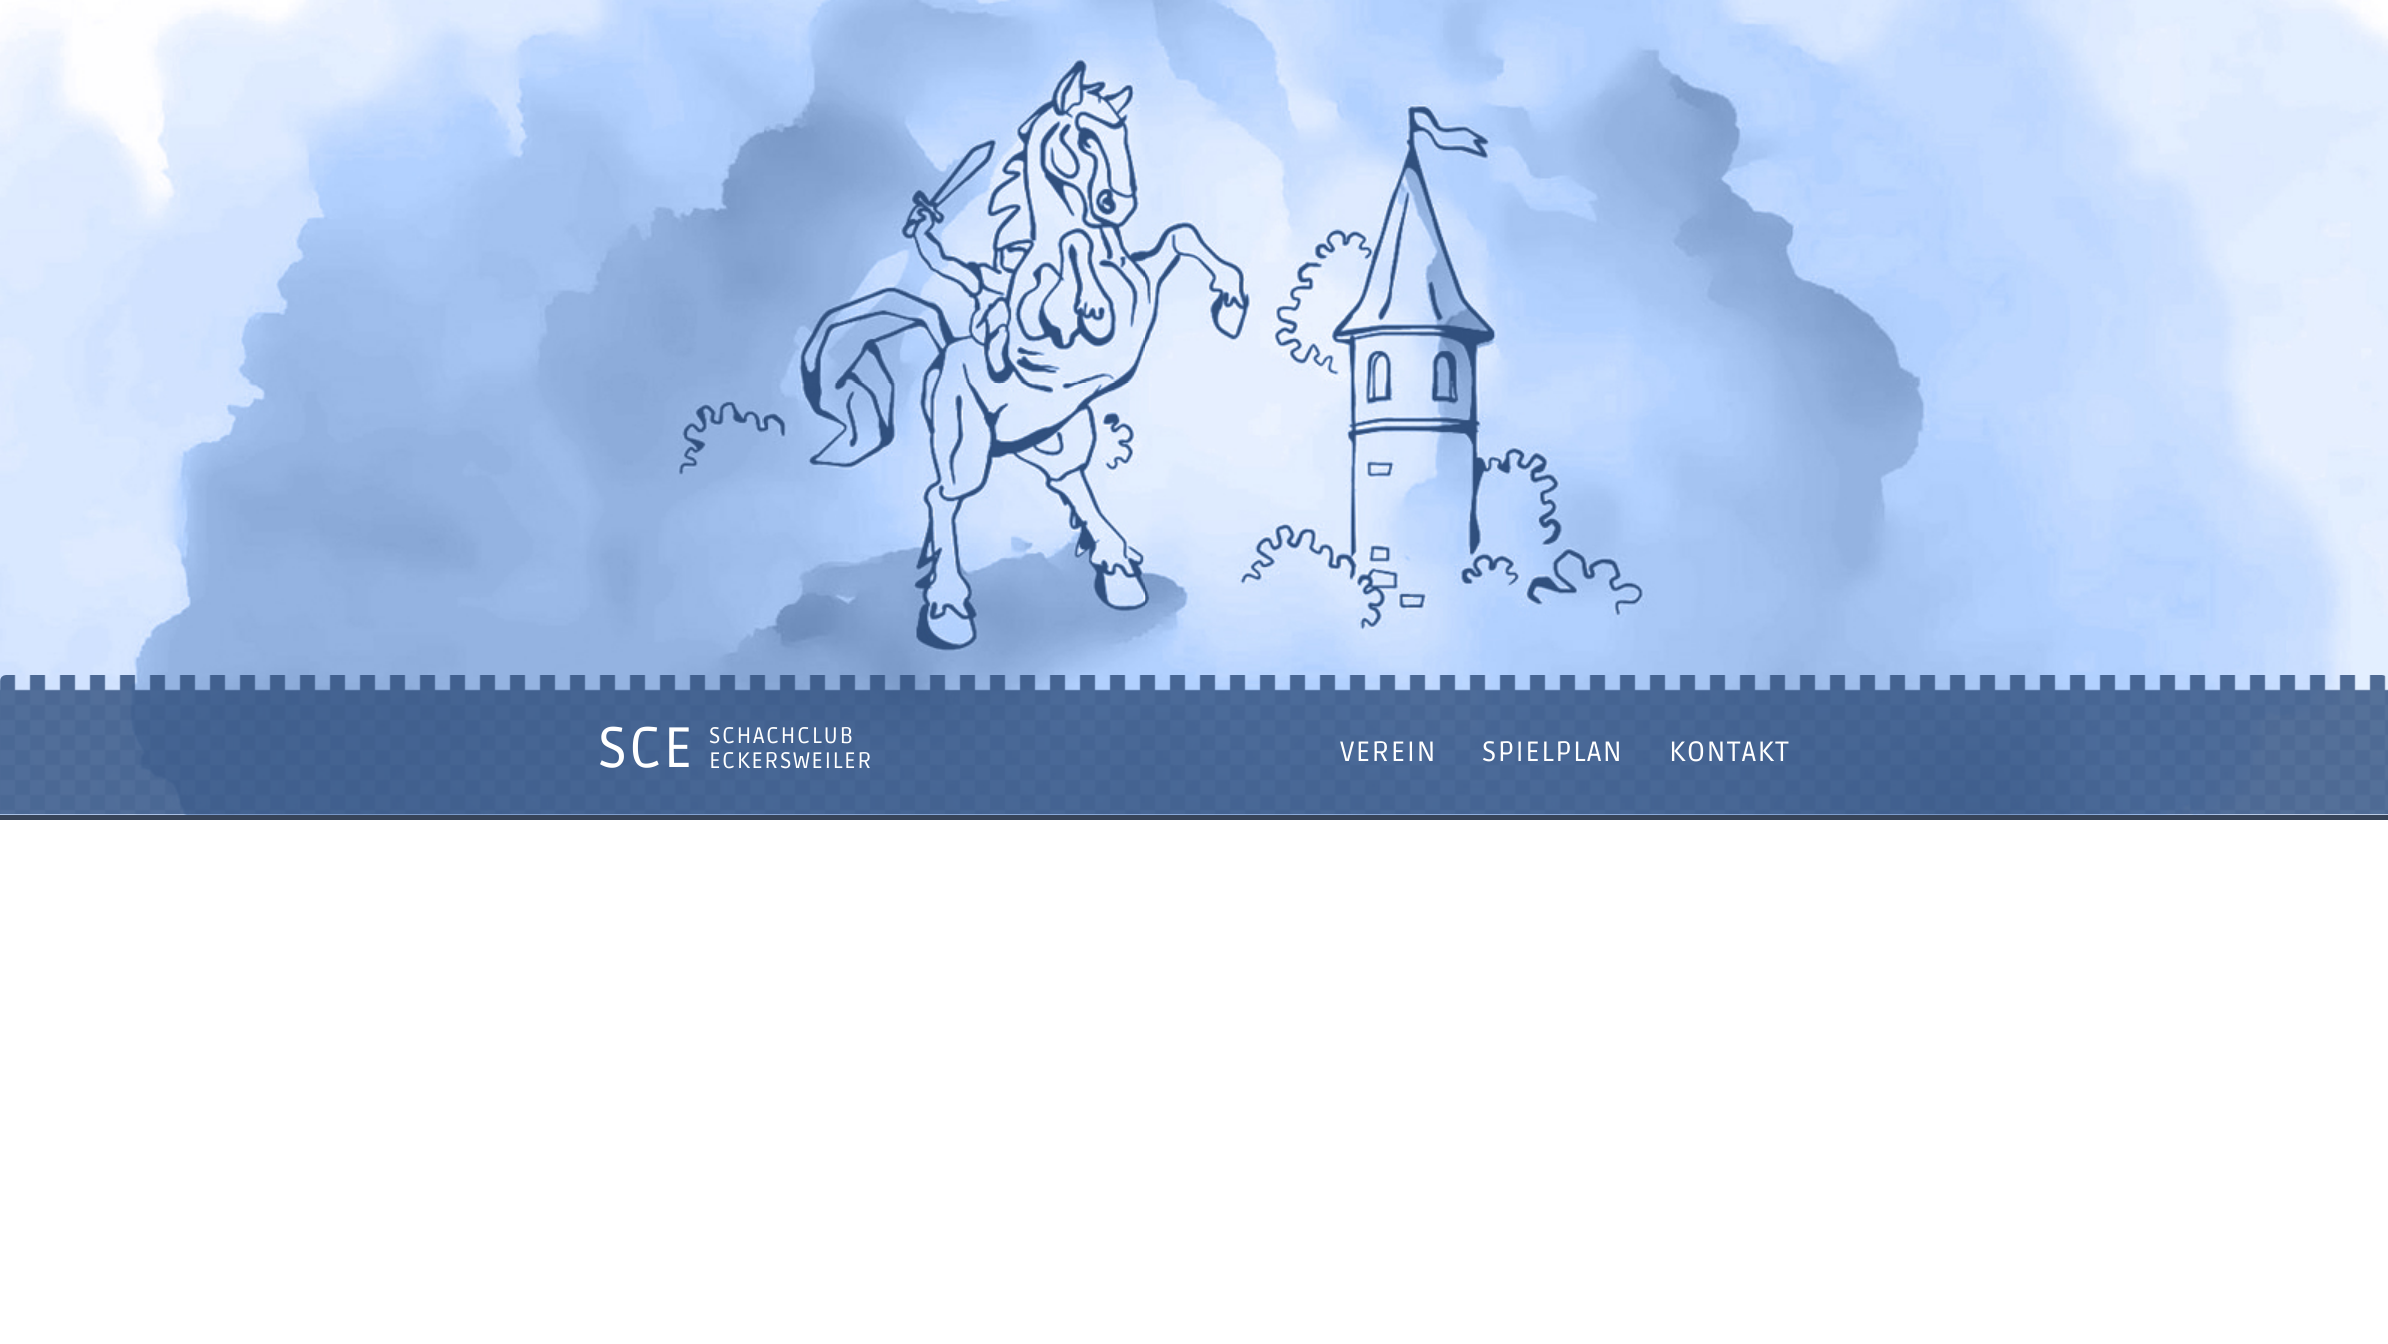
#include <cairo/cairo.h>
#include <math.h>
#include <stddef.h>


static void draw_spaced(cairo_t *cr, double x, double y, const char *s, double letter, double word) {
  cairo_move_to(cr, x, y);
  while (*s) {
    char ch[5] = {0};
    int n = 0;
    do ch[n++] = *s++; while ((*s & 0xC0) == 0x80);
    cairo_show_text(cr, ch);
    cairo_rel_move_to(cr, letter + word * (*ch == ' '), 0);
  }
}

static void draw_image(cairo_t *cr, const char *path, double x, double y, double w, double h) {
  cairo_surface_t *image = cairo_image_surface_create_from_png(path);
  cairo_save(cr);
  cairo_set_source_surface(cr, image, x, y);
  cairo_rectangle(cr, x, y, w, h);
  cairo_fill(cr);
  cairo_restore(cr);
  cairo_surface_destroy(image);
}

static void draw(cairo_t *cr) {
  cairo_set_source_rgb(cr, 1, 1, 1);
  cairo_paint(cr);
  draw_image(cr, "images/1.png", 0, 0, 2388, 815);
  draw_image(cr, "images/2.png", 0, 675, 2388, 140);
  cairo_set_source_rgb(cr, 55 / 255.0, 68 / 255.0, 89 / 255.0);
  cairo_rectangle(cr, 0, 815, 2388, 5);
  cairo_fill(cr);
  cairo_select_font_face(cr, "Ruda", CAIRO_FONT_SLANT_NORMAL, CAIRO_FONT_WEIGHT_NORMAL);
  cairo_set_font_size(cr, 57);
  cairo_set_source_rgb(cr, 1, 1, 1);
  draw_spaced(cr, 598, 767, "SCE", 1.5, 0);
  cairo_set_font_size(cr, 22.5);
  draw_spaced(cr, 709, 743, "SCHACHCLUB", 1.5, 0);
  draw_spaced(cr, 709, 768, "ECKERSWEILER", 1.5, 0);
  cairo_set_font_size(cr, 28);
  draw_spaced(cr, 1340, 761, "VEREIN", 1.5, 0);
  draw_spaced(cr, 1482, 761, "SPIELPLAN", 1.5, 0);
  draw_spaced(cr, 1669, 761, "KONTAKT", 1.5, 0);
}

int main(void) {
  cairo_surface_t *surface = cairo_image_surface_create(CAIRO_FORMAT_RGB24, 2388, 1344);
  cairo_t *cr = cairo_create(surface);
  cairo_font_options_t *options = cairo_font_options_create();
  cairo_font_options_set_hint_metrics(options, CAIRO_HINT_METRICS_OFF);
  cairo_font_options_set_hint_style(options, CAIRO_HINT_STYLE_NONE);
  cairo_set_font_options(cr, options);
  cairo_set_miter_limit(cr, 4);
  draw(cr);
  cairo_surface_write_to_png(surface, "out.png");
  cairo_font_options_destroy(options);
  cairo_destroy(cr);
  cairo_surface_destroy(surface);
  return 0;
}
